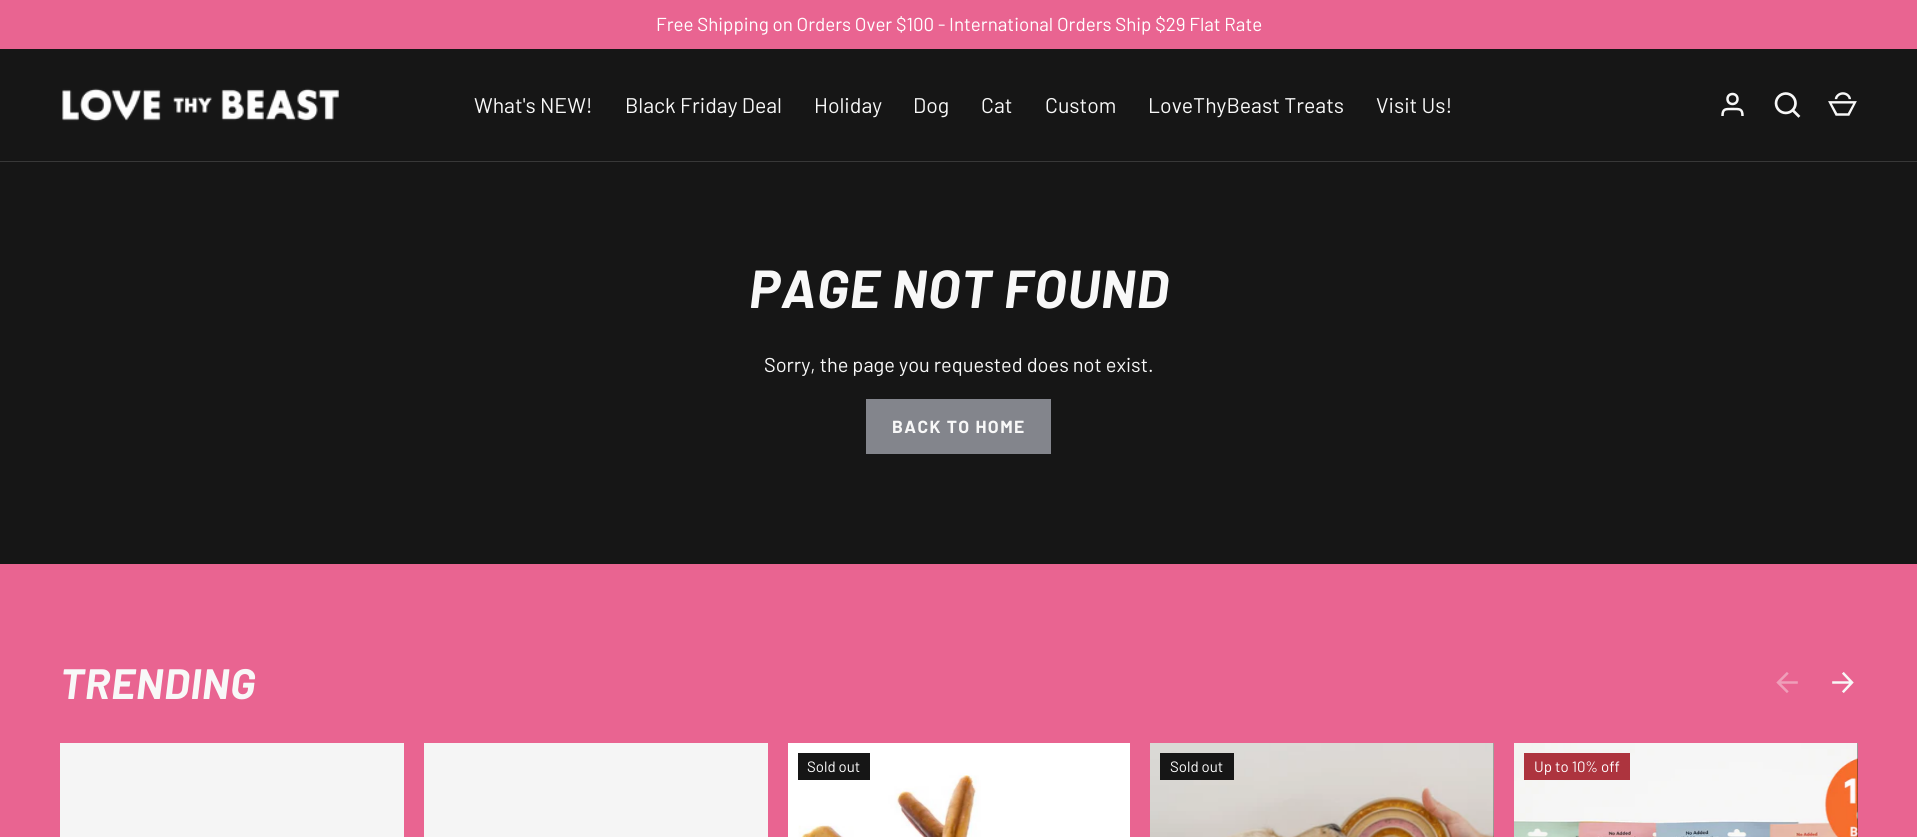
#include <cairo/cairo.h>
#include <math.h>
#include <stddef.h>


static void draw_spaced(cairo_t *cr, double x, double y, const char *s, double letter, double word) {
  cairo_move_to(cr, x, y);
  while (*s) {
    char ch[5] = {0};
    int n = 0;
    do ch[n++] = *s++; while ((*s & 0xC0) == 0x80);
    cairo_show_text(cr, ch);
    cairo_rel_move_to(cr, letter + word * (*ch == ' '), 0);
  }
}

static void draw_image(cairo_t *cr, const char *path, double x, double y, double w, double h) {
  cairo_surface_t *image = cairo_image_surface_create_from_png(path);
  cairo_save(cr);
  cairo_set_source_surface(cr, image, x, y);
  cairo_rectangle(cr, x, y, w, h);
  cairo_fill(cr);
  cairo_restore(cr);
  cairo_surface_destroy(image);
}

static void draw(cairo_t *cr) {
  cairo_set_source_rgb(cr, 22 / 255.0, 22 / 255.0, 22 / 255.0);
  cairo_paint(cr);
  cairo_set_source_rgb(cr, 233 / 255.0, 100 / 255.0, 145 / 255.0);
  cairo_rectangle(cr, 0, 0, 1917, 49);
  cairo_fill(cr);
  draw_image(cr, "images/1.png", 62, 88, 277, 34);
  cairo_arc(cr, 1732.5, 99, 5, 0, 2 * M_PI);
  cairo_set_source_rgb(cr, 248 / 255.0, 248 / 255.0, 248 / 255.0);
  cairo_set_line_width(cr, 2.5);
  cairo_stroke(cr);
  cairo_new_path(cr);
  cairo_move_to(cr, 1742.5, 116);
  cairo_curve_to(cr, 1742.5, 108.5, 1739.5, 109, 1732.5, 109);
  cairo_curve_to(cr, 1725.5, 109, 1722.5, 108.5, 1722.5, 116);
  cairo_stroke(cr);
  draw_image(cr, "images/2.png", 1774, 92, 27, 26);
  draw_image(cr, "images/3.png", 1828, 92, 29, 24);
  cairo_set_source_rgb(cr, 56 / 255.0, 56 / 255.0, 56 / 255.0);
  cairo_rectangle(cr, 0, 161, 1917, 1);
  cairo_fill(cr);
  cairo_set_source_rgb(cr, 131 / 255.0, 133 / 255.0, 140 / 255.0);
  cairo_rectangle(cr, 866, 399, 185, 55);
  cairo_fill(cr);
  cairo_set_source_rgb(cr, 233 / 255.0, 100 / 255.0, 145 / 255.0);
  cairo_rectangle(cr, 0, 564, 1917, 273);
  cairo_fill(cr);
  draw_image(cr, "images/4.png", 1776, 672, 22, 21);
  draw_image(cr, "images/5.png", 1832, 672, 22, 21);
  cairo_set_source_rgb(cr, 245 / 255.0, 245 / 255.0, 245 / 255.0);
  cairo_rectangle(cr, 60, 743, 344, 94);
  cairo_fill(cr);
  cairo_rectangle(cr, 424, 743, 344, 94);
  cairo_fill(cr);
  draw_image(cr, "images/6.png", 788, 743, 342, 94);
  cairo_set_source_rgb(cr, 22 / 255.0, 22 / 255.0, 22 / 255.0);
  cairo_rectangle(cr, 798, 753, 72, 27);
  cairo_fill(cr);
  cairo_set_source_rgb(cr, 38 / 255.0, 38 / 255.0, 38 / 255.0);
  cairo_rectangle(cr, 1493, 743, 1, 94);
  cairo_fill(cr);
  draw_image(cr, "images/7.png", 1150, 743, 344, 94);
  cairo_set_source_rgb(cr, 22 / 255.0, 22 / 255.0, 22 / 255.0);
  cairo_rectangle(cr, 1160, 753, 74, 27);
  cairo_fill(cr);
  cairo_set_source_rgb(cr, 38 / 255.0, 38 / 255.0, 38 / 255.0);
  cairo_rectangle(cr, 1857, 743, 1, 94);
  cairo_fill(cr);
  draw_image(cr, "images/8.png", 1514, 743, 344, 94);
  cairo_set_source_rgb(cr, 173 / 255.0, 52 / 255.0, 62 / 255.0);
  cairo_rectangle(cr, 1524, 753, 106, 27);
  cairo_fill(cr);
  cairo_select_font_face(cr, "Barlow", CAIRO_FONT_SLANT_NORMAL, CAIRO_FONT_WEIGHT_NORMAL);
  cairo_set_font_size(cr, 18.75);
  cairo_set_source_rgb(cr, 1, 1, 1);
  cairo_move_to(cr, 656, 31);
  cairo_show_text(cr, "Free Shipping on Orders Over $100 - International Orders Ship $29 Flat Rate");
  cairo_set_font_size(cr, 21.25);
  cairo_set_source_rgb(cr, 248 / 255.0, 248 / 255.0, 248 / 255.0);
  cairo_move_to(cr, 474, 113);
  cairo_show_text(cr, "What's NEW!");
  cairo_move_to(cr, 625, 113);
  cairo_show_text(cr, "Black Friday Deal");
  cairo_move_to(cr, 814, 113);
  cairo_show_text(cr, "Holiday");
  cairo_move_to(cr, 913, 113);
  cairo_show_text(cr, "Dog");
  cairo_move_to(cr, 981, 113);
  cairo_show_text(cr, "Cat");
  cairo_move_to(cr, 1045, 113);
  cairo_show_text(cr, "Custom");
  cairo_move_to(cr, 1148, 113);
  cairo_show_text(cr, "LoveThyBeast Treats");
  cairo_move_to(cr, 1376, 113);
  cairo_show_text(cr, "Visit Us!");
  cairo_select_font_face(cr, "Barlow", CAIRO_FONT_SLANT_ITALIC, CAIRO_FONT_WEIGHT_BOLD);
  cairo_set_font_size(cr, 53.5);
  draw_spaced(cr, 749, 308, "PAGE NOT FOUND", 1, 0);
  cairo_select_font_face(cr, "Barlow", CAIRO_FONT_SLANT_NORMAL, CAIRO_FONT_WEIGHT_NORMAL);
  cairo_set_font_size(cr, 20);
  cairo_move_to(cr, 764, 372);
  cairo_show_text(cr, "Sorry, the page you requested does not exist.");
  cairo_select_font_face(cr, "Barlow", CAIRO_FONT_SLANT_NORMAL, CAIRO_FONT_WEIGHT_BOLD);
  cairo_set_font_size(cr, 17.5);
  draw_spaced(cr, 892, 433, "BACK TO HOME", 1.4, 0);
  cairo_select_font_face(cr, "Barlow", CAIRO_FONT_SLANT_ITALIC, CAIRO_FONT_WEIGHT_BOLD);
  cairo_set_font_size(cr, 42.5);
  draw_spaced(cr, 60, 699, "TRENDING", 0.75, 0);
  cairo_select_font_face(cr, "Barlow", CAIRO_FONT_SLANT_NORMAL, CAIRO_FONT_WEIGHT_NORMAL);
  cairo_set_font_size(cr, 15);
  cairo_set_source_rgb(cr, 1, 1, 1);
  cairo_move_to(cr, 807, 772);
  cairo_show_text(cr, "Sold out");
  cairo_move_to(cr, 1170, 772);
  cairo_show_text(cr, "Sold out");
  cairo_move_to(cr, 1534, 772);
  cairo_show_text(cr, "Up to 10% off");
}

int main(void) {
  cairo_surface_t *surface = cairo_image_surface_create(CAIRO_FORMAT_RGB24, 1917, 837);
  cairo_t *cr = cairo_create(surface);
  cairo_font_options_t *options = cairo_font_options_create();
  cairo_font_options_set_hint_metrics(options, CAIRO_HINT_METRICS_OFF);
  cairo_font_options_set_hint_style(options, CAIRO_HINT_STYLE_NONE);
  cairo_set_font_options(cr, options);
  cairo_set_miter_limit(cr, 4);
  draw(cr);
  cairo_surface_write_to_png(surface, "out.png");
  cairo_font_options_destroy(options);
  cairo_destroy(cr);
  cairo_surface_destroy(surface);
  return 0;
}
